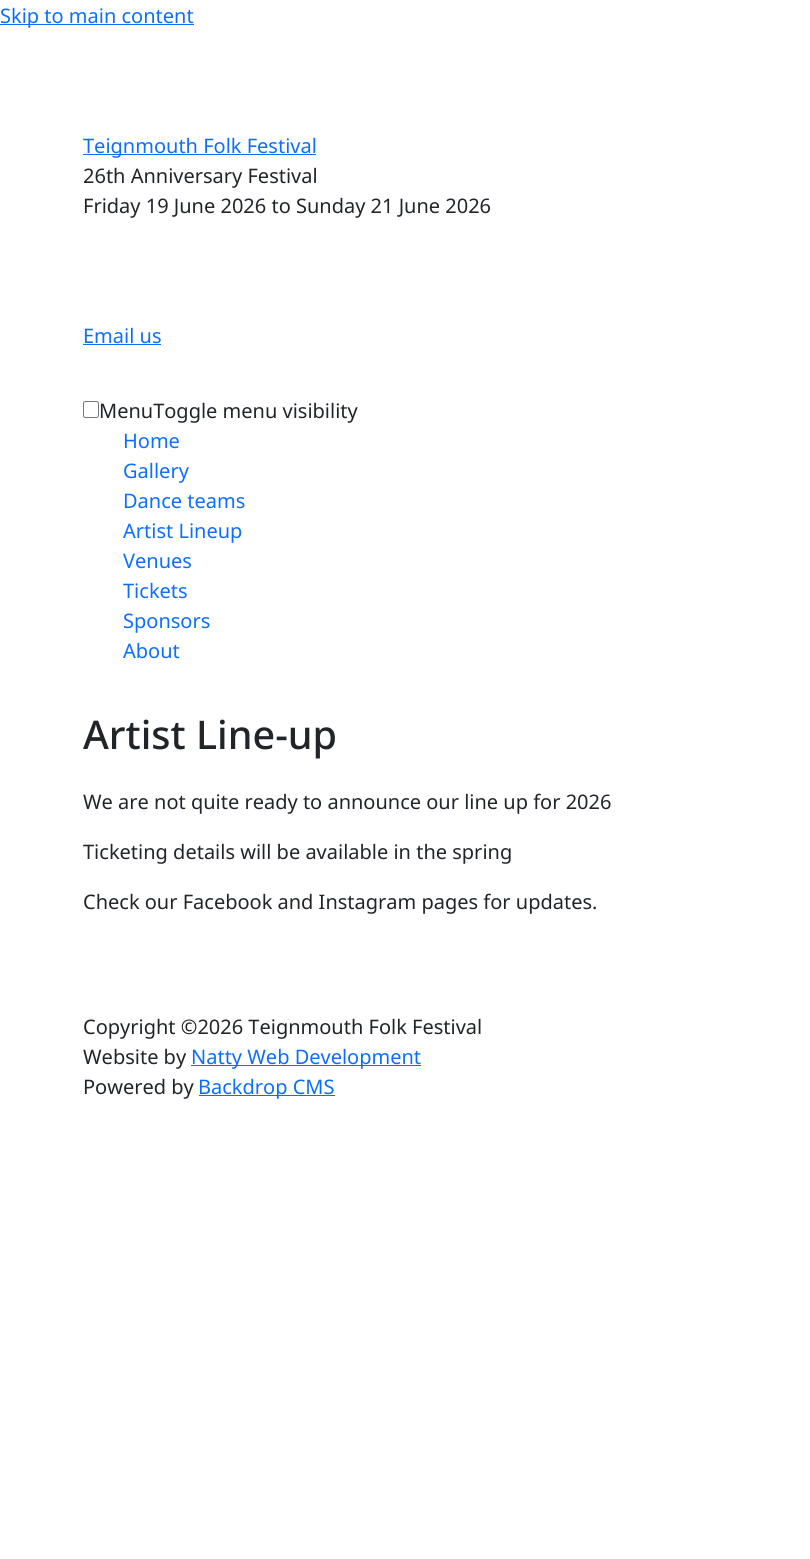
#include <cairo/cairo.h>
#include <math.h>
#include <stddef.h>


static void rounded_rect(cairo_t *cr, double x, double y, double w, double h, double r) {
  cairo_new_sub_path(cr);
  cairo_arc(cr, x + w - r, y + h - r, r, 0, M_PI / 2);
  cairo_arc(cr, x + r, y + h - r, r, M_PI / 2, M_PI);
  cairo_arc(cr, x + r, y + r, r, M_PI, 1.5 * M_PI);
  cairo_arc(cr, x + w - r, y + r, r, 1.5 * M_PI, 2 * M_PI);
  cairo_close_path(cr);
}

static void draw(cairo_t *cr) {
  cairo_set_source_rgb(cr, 1, 1, 1);
  cairo_paint(cr);
  cairo_set_source_rgb(cr, 13 / 255.0, 110 / 255.0, 253 / 255.0);
  cairo_rectangle(cr, 0, 24, 194, 1);
  cairo_fill(cr);
  cairo_rectangle(cr, 83, 154, 233, 1);
  cairo_fill(cr);
  cairo_rectangle(cr, 83, 344, 78, 1);
  cairo_fill(cr);
  rounded_rect(cr, 83.5, 401.5, 15, 16, 2);
  cairo_set_source_rgb(cr, 118 / 255.0, 118 / 255.0, 118 / 255.0);
  cairo_set_line_width(cr, 1);
  cairo_stroke(cr);
  cairo_set_source_rgb(cr, 13 / 255.0, 110 / 255.0, 253 / 255.0);
  cairo_rectangle(cr, 191, 1065, 230, 1);
  cairo_fill(cr);
  cairo_rectangle(cr, 199, 1095, 136, 1);
  cairo_fill(cr);
  cairo_select_font_face(cr, "Noto Sans", CAIRO_FONT_SLANT_NORMAL, CAIRO_FONT_WEIGHT_NORMAL);
  cairo_set_font_size(cr, 20);
  cairo_move_to(cr, 0, 23);
  cairo_show_text(cr, "Skip to main content");
  cairo_move_to(cr, 83, 153);
  cairo_show_text(cr, "Teignmouth Folk Festival");
  cairo_set_source_rgb(cr, 33 / 255.0, 37 / 255.0, 41 / 255.0);
  cairo_move_to(cr, 83, 183);
  cairo_show_text(cr, "26th Anniversary Festival");
  cairo_move_to(cr, 83, 213);
  cairo_show_text(cr, "Friday 19 June 2026 to Sunday 21 June 2026");
  cairo_set_source_rgb(cr, 13 / 255.0, 110 / 255.0, 253 / 255.0);
  cairo_move_to(cr, 83, 343);
  cairo_show_text(cr, "Email us");
  cairo_set_source_rgb(cr, 33 / 255.0, 37 / 255.0, 41 / 255.0);
  cairo_move_to(cr, 99, 418);
  cairo_show_text(cr, "MenuToggle menu visibility");
  cairo_set_source_rgb(cr, 13 / 255.0, 110 / 255.0, 253 / 255.0);
  cairo_move_to(cr, 123, 448);
  cairo_show_text(cr, "Home");
  cairo_move_to(cr, 123, 478);
  cairo_show_text(cr, "Gallery");
  cairo_move_to(cr, 123, 508);
  cairo_show_text(cr, "Dance teams");
  cairo_move_to(cr, 123, 538);
  cairo_show_text(cr, "Artist Lineup");
  cairo_move_to(cr, 123, 568);
  cairo_show_text(cr, "Venues");
  cairo_move_to(cr, 123, 598);
  cairo_show_text(cr, "Tickets");
  cairo_move_to(cr, 123, 628);
  cairo_show_text(cr, "Sponsors");
  cairo_move_to(cr, 123, 658);
  cairo_show_text(cr, "About");
  cairo_select_font_face(cr, "Noto Sans Medium", CAIRO_FONT_SLANT_NORMAL, CAIRO_FONT_WEIGHT_NORMAL);
  cairo_set_font_size(cr, 39.5);
  cairo_set_source_rgb(cr, 33 / 255.0, 37 / 255.0, 41 / 255.0);
  cairo_move_to(cr, 83, 749);
  cairo_show_text(cr, "Artist Line-up");
  cairo_select_font_face(cr, "Noto Sans", CAIRO_FONT_SLANT_NORMAL, CAIRO_FONT_WEIGHT_NORMAL);
  cairo_set_font_size(cr, 20);
  cairo_move_to(cr, 83, 809);
  cairo_show_text(cr, "We are not quite ready to announce our line up for 2026");
  cairo_move_to(cr, 83, 859);
  cairo_show_text(cr, "Ticketing details will be available in the spring");
  cairo_move_to(cr, 83, 909);
  cairo_show_text(cr, "Check our Facebook and Instagram pages for updates.");
  cairo_move_to(cr, 83, 1034);
  cairo_show_text(cr, "Copyright ©2026 Teignmouth Folk Festival");
  cairo_move_to(cr, 83, 1064);
  cairo_show_text(cr, "Website by");
  cairo_set_source_rgb(cr, 13 / 255.0, 110 / 255.0, 253 / 255.0);
  cairo_move_to(cr, 191, 1064);
  cairo_show_text(cr, "Natty Web Development");
  cairo_set_source_rgb(cr, 33 / 255.0, 37 / 255.0, 41 / 255.0);
  cairo_move_to(cr, 83, 1094);
  cairo_show_text(cr, "Powered by");
  cairo_set_source_rgb(cr, 13 / 255.0, 110 / 255.0, 253 / 255.0);
  cairo_move_to(cr, 198, 1094);
  cairo_show_text(cr, "Backdrop CMS");
}

int main(void) {
  cairo_surface_t *surface = cairo_image_surface_create(CAIRO_FORMAT_RGB24, 810, 1559);
  cairo_t *cr = cairo_create(surface);
  cairo_font_options_t *options = cairo_font_options_create();
  cairo_font_options_set_hint_metrics(options, CAIRO_HINT_METRICS_OFF);
  cairo_font_options_set_hint_style(options, CAIRO_HINT_STYLE_NONE);
  cairo_set_font_options(cr, options);
  cairo_set_miter_limit(cr, 4);
  draw(cr);
  cairo_surface_write_to_png(surface, "out.png");
  cairo_font_options_destroy(options);
  cairo_destroy(cr);
  cairo_surface_destroy(surface);
  return 0;
}
